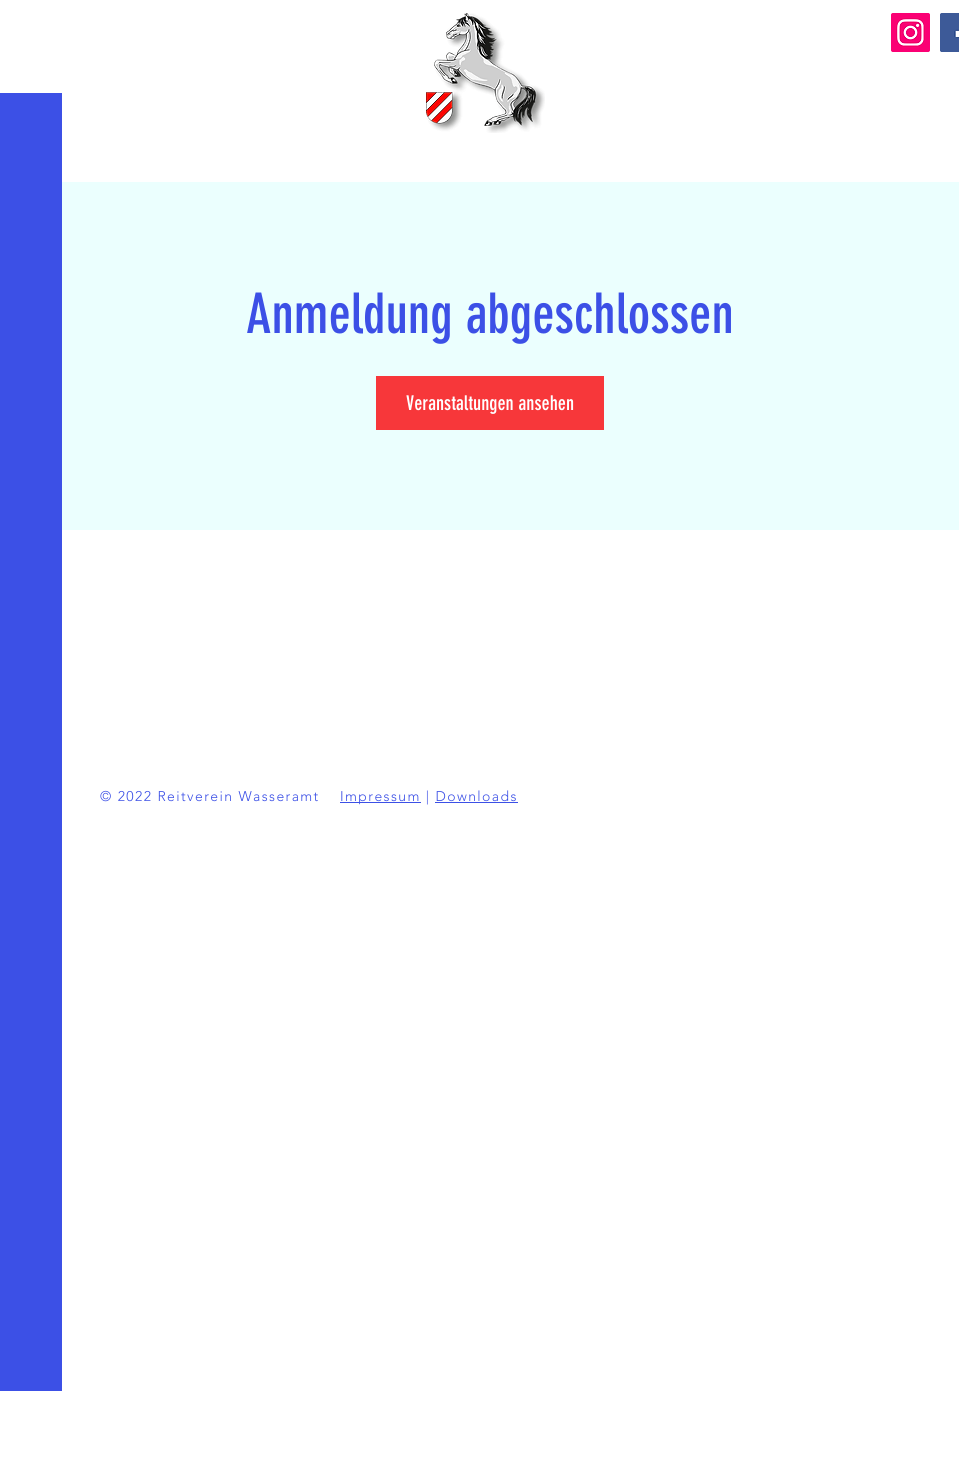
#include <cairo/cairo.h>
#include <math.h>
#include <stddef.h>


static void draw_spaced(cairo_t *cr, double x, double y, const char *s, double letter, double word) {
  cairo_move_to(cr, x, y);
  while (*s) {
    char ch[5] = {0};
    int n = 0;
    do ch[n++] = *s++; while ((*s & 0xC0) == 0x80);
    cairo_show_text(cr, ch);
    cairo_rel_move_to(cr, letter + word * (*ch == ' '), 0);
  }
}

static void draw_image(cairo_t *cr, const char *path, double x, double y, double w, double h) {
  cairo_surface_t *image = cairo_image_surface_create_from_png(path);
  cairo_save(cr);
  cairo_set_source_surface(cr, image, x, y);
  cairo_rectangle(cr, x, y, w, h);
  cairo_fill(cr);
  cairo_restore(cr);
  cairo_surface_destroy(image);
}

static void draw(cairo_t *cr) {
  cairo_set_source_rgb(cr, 1, 1, 1);
  cairo_paint(cr);
  draw_image(cr, "images/1.png", 426, 13, 119, 120);
  draw_image(cr, "images/2.png", 891, 13, 39, 39);
  draw_image(cr, "images/3.png", 940, 13, 19, 39);
  cairo_set_source_rgb(cr, 60 / 255.0, 80 / 255.0, 230 / 255.0);
  cairo_rectangle(cr, 0, 93, 62, 1298);
  cairo_fill(cr);
  cairo_set_source_rgb(cr, 235 / 255.0, 1, 254 / 255.0);
  cairo_rectangle(cr, 62, 182, 897, 348);
  cairo_fill(cr);
  cairo_set_source_rgb(cr, 247 / 255.0, 55 / 255.0, 58 / 255.0);
  cairo_rectangle(cr, 376, 376, 228, 54);
  cairo_fill(cr);
  cairo_set_source_rgb(cr, 60 / 255.0, 80 / 255.0, 230 / 255.0);
  cairo_rectangle(cr, 340, 802, 81, 1);
  cairo_fill(cr);
  cairo_rectangle(cr, 435, 802, 83, 1);
  cairo_fill(cr);
  cairo_select_font_face(cr, "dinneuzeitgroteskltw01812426", CAIRO_FONT_SLANT_NORMAL, CAIRO_FONT_WEIGHT_NORMAL);
  cairo_set_font_size(cr, 55);
  cairo_move_to(cr, 246, 333);
  cairo_show_text(cr, "Anmeldung abgeschlossen");
  cairo_set_font_size(cr, 20);
  cairo_set_source_rgb(cr, 1, 1, 1);
  cairo_move_to(cr, 406, 410);
  cairo_show_text(cr, "Veranstaltungen ansehen");
  cairo_select_font_face(cr, "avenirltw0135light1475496 Light", CAIRO_FONT_SLANT_NORMAL, CAIRO_FONT_WEIGHT_NORMAL);
  cairo_set_font_size(cr, 14);
  cairo_set_source_rgb(cr, 60 / 255.0, 80 / 255.0, 230 / 255.0);
  draw_spaced(cr, 100, 801, "© 2022 Reitverein Wasseramt", 1.4, 0);
  draw_spaced(cr, 340, 801, "Impressum | Downloads", 1.4, 0);
}

int main(void) {
  cairo_surface_t *surface = cairo_image_surface_create(CAIRO_FORMAT_RGB24, 959, 1483);
  cairo_t *cr = cairo_create(surface);
  cairo_font_options_t *options = cairo_font_options_create();
  cairo_font_options_set_hint_metrics(options, CAIRO_HINT_METRICS_OFF);
  cairo_font_options_set_hint_style(options, CAIRO_HINT_STYLE_NONE);
  cairo_set_font_options(cr, options);
  cairo_set_miter_limit(cr, 4);
  draw(cr);
  cairo_surface_write_to_png(surface, "out.png");
  cairo_font_options_destroy(options);
  cairo_destroy(cr);
  cairo_surface_destroy(surface);
  return 0;
}
